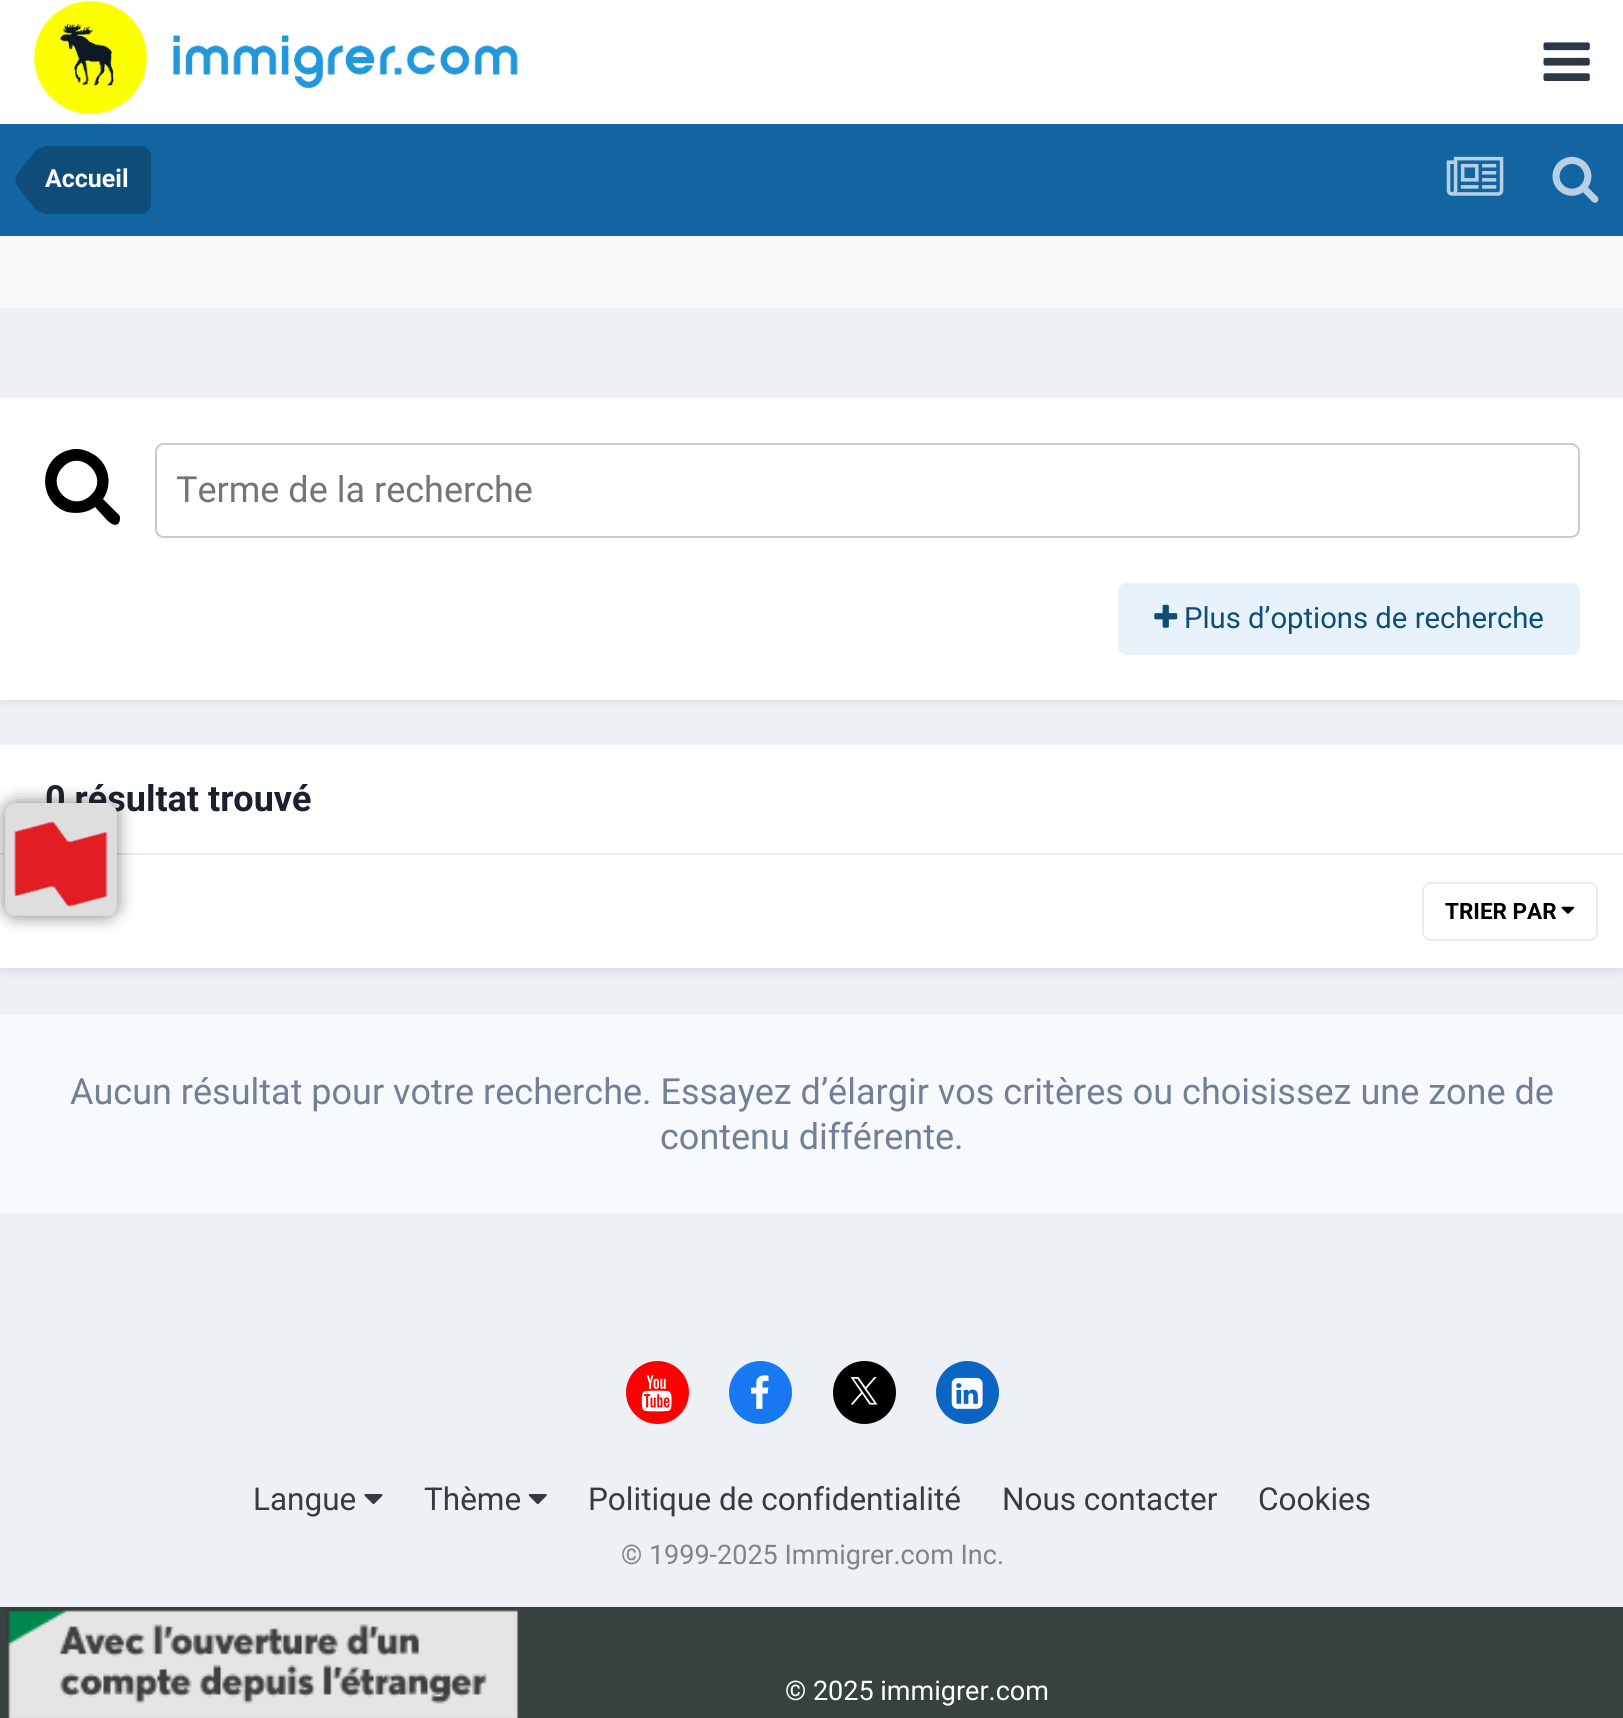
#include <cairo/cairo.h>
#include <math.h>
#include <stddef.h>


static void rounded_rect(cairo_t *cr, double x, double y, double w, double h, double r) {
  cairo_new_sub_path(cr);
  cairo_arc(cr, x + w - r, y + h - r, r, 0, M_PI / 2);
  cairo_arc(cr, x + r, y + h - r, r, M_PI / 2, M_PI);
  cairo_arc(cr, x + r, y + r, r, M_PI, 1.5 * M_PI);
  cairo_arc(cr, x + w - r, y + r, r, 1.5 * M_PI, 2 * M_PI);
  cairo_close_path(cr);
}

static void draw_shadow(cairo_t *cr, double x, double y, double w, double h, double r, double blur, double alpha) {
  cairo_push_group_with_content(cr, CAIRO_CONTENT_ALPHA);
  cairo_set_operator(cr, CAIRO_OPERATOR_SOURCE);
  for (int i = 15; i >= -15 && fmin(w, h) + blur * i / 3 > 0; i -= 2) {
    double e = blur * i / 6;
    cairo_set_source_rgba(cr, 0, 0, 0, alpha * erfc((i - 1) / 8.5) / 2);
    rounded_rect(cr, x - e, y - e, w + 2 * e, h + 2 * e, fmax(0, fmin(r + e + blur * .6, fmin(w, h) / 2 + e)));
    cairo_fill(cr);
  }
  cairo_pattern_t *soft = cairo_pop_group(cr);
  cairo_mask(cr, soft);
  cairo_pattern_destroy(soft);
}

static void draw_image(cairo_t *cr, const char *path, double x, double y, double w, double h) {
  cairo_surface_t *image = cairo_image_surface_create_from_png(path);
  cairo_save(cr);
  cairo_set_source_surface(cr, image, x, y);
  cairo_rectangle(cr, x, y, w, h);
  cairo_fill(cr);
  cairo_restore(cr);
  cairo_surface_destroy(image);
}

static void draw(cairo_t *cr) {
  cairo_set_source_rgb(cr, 237 / 255.0, 240 / 255.0, 244 / 255.0);
  cairo_paint(cr);
  cairo_set_source_rgb(cr, 1, 1, 1);
  cairo_rectangle(cr, 0, 0, 1623, 124);
  cairo_fill(cr);
  draw_image(cr, "images/1.png", 33, 0, 485, 115);
  draw_image(cr, "images/2.png", 1543, 42, 47, 39);
  cairo_set_source_rgb(cr, 18 / 255.0, 101 / 255.0, 161 / 255.0);
  cairo_rectangle(cr, 0, 124, 1623, 112);
  cairo_fill(cr);
  cairo_set_source_rgb(cr, 14 / 255.0, 76 / 255.0, 121 / 255.0);
  cairo_new_path(cr);
  cairo_move_to(cr, 45, 146);
  cairo_line_to(cr, 140, 146);
  cairo_curve_to(cr, 146, 146, 151, 151, 151, 157);
  cairo_line_to(cr, 151, 203);
  cairo_curve_to(cr, 151, 209, 146, 214, 140, 214);
  cairo_line_to(cr, 45, 214);
  cairo_close_path(cr);
  cairo_fill(cr);
  cairo_new_path(cr);
  cairo_move_to(cr, 45, 180);
  cairo_line_to(cr, 45, 213);
  cairo_curve_to(cr, 40, 213, 35.5, 210.5, 32, 205);
  cairo_line_to(cr, 21.5, 191.5);
  cairo_line_to(cr, 16, 183.5);
  cairo_curve_to(cr, 15.5, 182, 15.5, 181, 15.5, 180);
  cairo_close_path(cr);
  cairo_fill(cr);
  cairo_new_path(cr);
  cairo_move_to(cr, 45, 180);
  cairo_line_to(cr, 15.5, 180);
  cairo_curve_to(cr, 15.5, 179, 15.5, 178, 16, 176.5);
  cairo_line_to(cr, 21.5, 168.5);
  cairo_line_to(cr, 32, 155);
  cairo_curve_to(cr, 35.5, 149.5, 40, 147, 45, 147);
  cairo_close_path(cr);
  cairo_fill(cr);
  draw_image(cr, "images/3.png", 1446, 156, 58, 40);
  draw_image(cr, "images/4.png", 1552, 156, 47, 47);
  cairo_set_source_rgb(cr, 248 / 255.0, 248 / 255.0, 248 / 255.0);
  cairo_rectangle(cr, 0, 236, 1623, 72);
  cairo_fill(cr);
  cairo_set_source_rgb(cr, 45 / 255.0, 55 / 255.0, 72 / 255.0);
  draw_shadow(cr, 2, 405, 1620, 297, 0, 4.5, 0.1);
  cairo_set_source_rgb(cr, 1, 1, 1);
  cairo_rectangle(cr, 0, 398, 1623, 302);
  cairo_fill(cr);
  cairo_set_source_rgb(cr, 0, 0, 0);
  cairo_new_path(cr);
  cairo_move_to(cr, 91, 495);
  cairo_curve_to(cr, 110, 477, 81, 448, 63, 467);
  cairo_curve_to(cr, 44, 486, 72, 514, 91, 495);
  cairo_close_path(cr);
  cairo_move_to(cr, 120, 519);
  cairo_curve_to(cr, 120, 521, 119, 523, 118, 524);
  cairo_curve_to(cr, 113, 527, 108, 521, 105, 518);
  cairo_line_to(cr, 95, 507);
  cairo_curve_to(cr, 87, 513, 77, 514, 67, 512);
  cairo_curve_to(cr, 37, 502, 38, 458, 69, 450);
  cairo_curve_to(cr, 76, 448, 84, 449, 91, 453);
  cairo_curve_to(cr, 108, 461, 114, 483, 103, 499);
  cairo_line_to(cr, 119, 515);
  cairo_curve_to(cr, 120, 516, 120, 517, 120, 519);
  cairo_close_path(cr);
  cairo_fill(cr);
  rounded_rect(cr, 156, 444, 1423, 93, 8);
  cairo_set_source_rgb(cr, 198 / 255.0, 204 / 255.0, 213 / 255.0);
  cairo_stroke(cr);
  cairo_set_source_rgb(cr, 232 / 255.0, 242 / 255.0, 250 / 255.0);
  rounded_rect(cr, 1118, 583, 462, 72, 9);
  cairo_fill(cr);
  draw_image(cr, "images/5.png", 1154, 604, 24, 24);
  cairo_set_source_rgb(cr, 45 / 255.0, 55 / 255.0, 72 / 255.0);
  draw_shadow(cr, 2, 752, 1620, 220, 0, 4.5, 0.1);
  cairo_set_source_rgb(cr, 1, 1, 1);
  cairo_rectangle(cr, 0, 745, 1623, 223);
  cairo_fill(cr);
  cairo_set_source_rgb(cr, 234 / 255.0, 236 / 255.0, 239 / 255.0);
  cairo_rectangle(cr, 0, 853, 1623, 2);
  cairo_fill(cr);
  cairo_set_source_rgb(cr, 225 / 255.0, 226 / 255.0, 227 / 255.0);
  cairo_rectangle(cr, 0, 968, 1623, 2);
  cairo_fill(cr);
  draw_image(cr, "images/6.png", 1561, 906, 14, 8);
  rounded_rect(cr, 1423, 883, 174, 57, 8);
  cairo_set_source_rgb(cr, 235 / 255.0, 236 / 255.0, 236 / 255.0);
  cairo_stroke(cr);
  cairo_set_source_rgb(cr, 247 / 255.0, 250 / 255.0, 252 / 255.0);
  cairo_rectangle(cr, 0, 1015, 1623, 198);
  cairo_fill(cr);
  cairo_set_source_rgb(cr, 0, 0, 0);
  draw_shadow(cr, 5, 803, 112, 113, 11, 9, 0.5);
  cairo_set_source_rgb(cr, 1, 0, 0);
  cairo_arc(cr, 657.5, 1392.5, 31.5, 0, 2 * M_PI);
  cairo_fill(cr);
  draw_image(cr, "images/8.png", 641, 1375, 31, 37);
  cairo_set_source_rgb(cr, 23 / 255.0, 120 / 255.0, 242 / 255.0);
  cairo_arc(cr, 760.5, 1392.5, 31.5, 0, 2 * M_PI);
  cairo_fill(cr);
  draw_image(cr, "images/9.png", 751, 1375, 18, 34);
  cairo_set_source_rgb(cr, 0, 0, 0);
  cairo_arc(cr, 864.5, 1392.5, 31.5, 0, 2 * M_PI);
  cairo_fill(cr);
  draw_image(cr, "images/10.png", 851, 1377, 27, 28);
  cairo_set_source_rgb(cr, 10 / 255.0, 102 / 255.0, 194 / 255.0);
  cairo_arc(cr, 967.5, 1392.5, 31.5, 0, 2 * M_PI);
  cairo_fill(cr);
  draw_image(cr, "images/11.png", 951, 1377, 32, 32);
  draw_image(cr, "images/12.png", 364, 1494, 19, 11);
  draw_image(cr, "images/13.png", 528, 1494, 19, 11);
  cairo_set_source_rgb(cr, 55 / 255.0, 65 / 255.0, 64 / 255.0);
  cairo_rectangle(cr, 0, 1607, 1623, 111);
  cairo_fill(cr);
  draw_image(cr, "images/14.png", 7, 1609, 513, 109);
  cairo_select_font_face(cr, "Roboto", CAIRO_FONT_SLANT_NORMAL, CAIRO_FONT_WEIGHT_BOLD);
  cairo_set_font_size(cr, 25);
  cairo_set_source_rgb(cr, 1, 1, 1);
  cairo_move_to(cr, 45, 187);
  cairo_show_text(cr, "Accueil");
  cairo_select_font_face(cr, "Roboto", CAIRO_FONT_SLANT_NORMAL, CAIRO_FONT_WEIGHT_NORMAL);
  cairo_set_font_size(cr, 36);
  cairo_set_source_rgb(cr, 117 / 255.0, 117 / 255.0, 117 / 255.0);
  cairo_move_to(cr, 176, 502);
  cairo_show_text(cr, "Terme de la recherche");
  cairo_set_font_size(cr, 29.25);
  cairo_set_source_rgb(cr, 14 / 255.0, 76 / 255.0, 121 / 255.0);
  cairo_move_to(cr, 1184, 628);
  cairo_show_text(cr, "Plus d’options de recherche");
  cairo_select_font_face(cr, "Roboto", CAIRO_FONT_SLANT_NORMAL, CAIRO_FONT_WEIGHT_BOLD);
  cairo_set_font_size(cr, 36);
  cairo_set_source_rgb(cr, 26 / 255.0, 32 / 255.0, 44 / 255.0);
  cairo_move_to(cr, 45, 811);
  cairo_show_text(cr, "0 résultat trouvé");
  cairo_set_font_size(cr, 22.5);
  cairo_set_source_rgb(cr, 0, 0, 0);
  cairo_move_to(cr, 1445, 919);
  cairo_show_text(cr, "TRIER PAR");
  cairo_select_font_face(cr, "Roboto", CAIRO_FONT_SLANT_NORMAL, CAIRO_FONT_WEIGHT_NORMAL);
  cairo_set_font_size(cr, 36);
  cairo_set_source_rgb(cr, 113 / 255.0, 128 / 255.0, 150 / 255.0);
  cairo_move_to(cr, 70, 1104);
  cairo_show_text(cr, "Aucun résultat pour votre recherche. Essayez d’élargir vos critères ou choisissez une zone de");
  cairo_move_to(cr, 660, 1149);
  cairo_show_text(cr, "contenu différente.");
  cairo_set_source_rgb(cr, 222 / 255.0, 222 / 255.0, 222 / 255.0);
  rounded_rect(cr, 5, 803, 112, 113, 11);
  cairo_fill(cr);
  draw_image(cr, "images/7.png", 14, 821, 94, 86);
  cairo_set_font_size(cr, 31.5);
  cairo_set_source_rgb(cr, 53 / 255.0, 60 / 255.0, 65 / 255.0);
  cairo_move_to(cr, 253, 1510);
  cairo_show_text(cr, "Langue");
  cairo_move_to(cr, 424, 1510);
  cairo_show_text(cr, "Thème");
  cairo_move_to(cr, 588, 1510);
  cairo_show_text(cr, "Politique de confidentialité");
  cairo_move_to(cr, 1002, 1510);
  cairo_show_text(cr, "Nous contacter");
  cairo_move_to(cr, 1258, 1510);
  cairo_show_text(cr, "Cookies");
  cairo_set_font_size(cr, 27);
  cairo_set_source_rgb(cr, 127 / 255.0, 132 / 255.0, 137 / 255.0);
  cairo_move_to(cr, 621, 1564);
  cairo_show_text(cr, "© 1999-2025 Immigrer.com Inc.");
  cairo_set_source_rgb(cr, 1, 1, 1);
  cairo_move_to(cr, 785, 1700);
  cairo_show_text(cr, "© 2025 immigrer.com");
}

int main(void) {
  cairo_surface_t *surface = cairo_image_surface_create(CAIRO_FORMAT_RGB24, 1623, 1718);
  cairo_t *cr = cairo_create(surface);
  cairo_font_options_t *options = cairo_font_options_create();
  cairo_font_options_set_hint_metrics(options, CAIRO_HINT_METRICS_OFF);
  cairo_font_options_set_hint_style(options, CAIRO_HINT_STYLE_NONE);
  cairo_set_font_options(cr, options);
  cairo_set_miter_limit(cr, 4);
  draw(cr);
  cairo_surface_write_to_png(surface, "out.png");
  cairo_font_options_destroy(options);
  cairo_destroy(cr);
  cairo_surface_destroy(surface);
  return 0;
}
